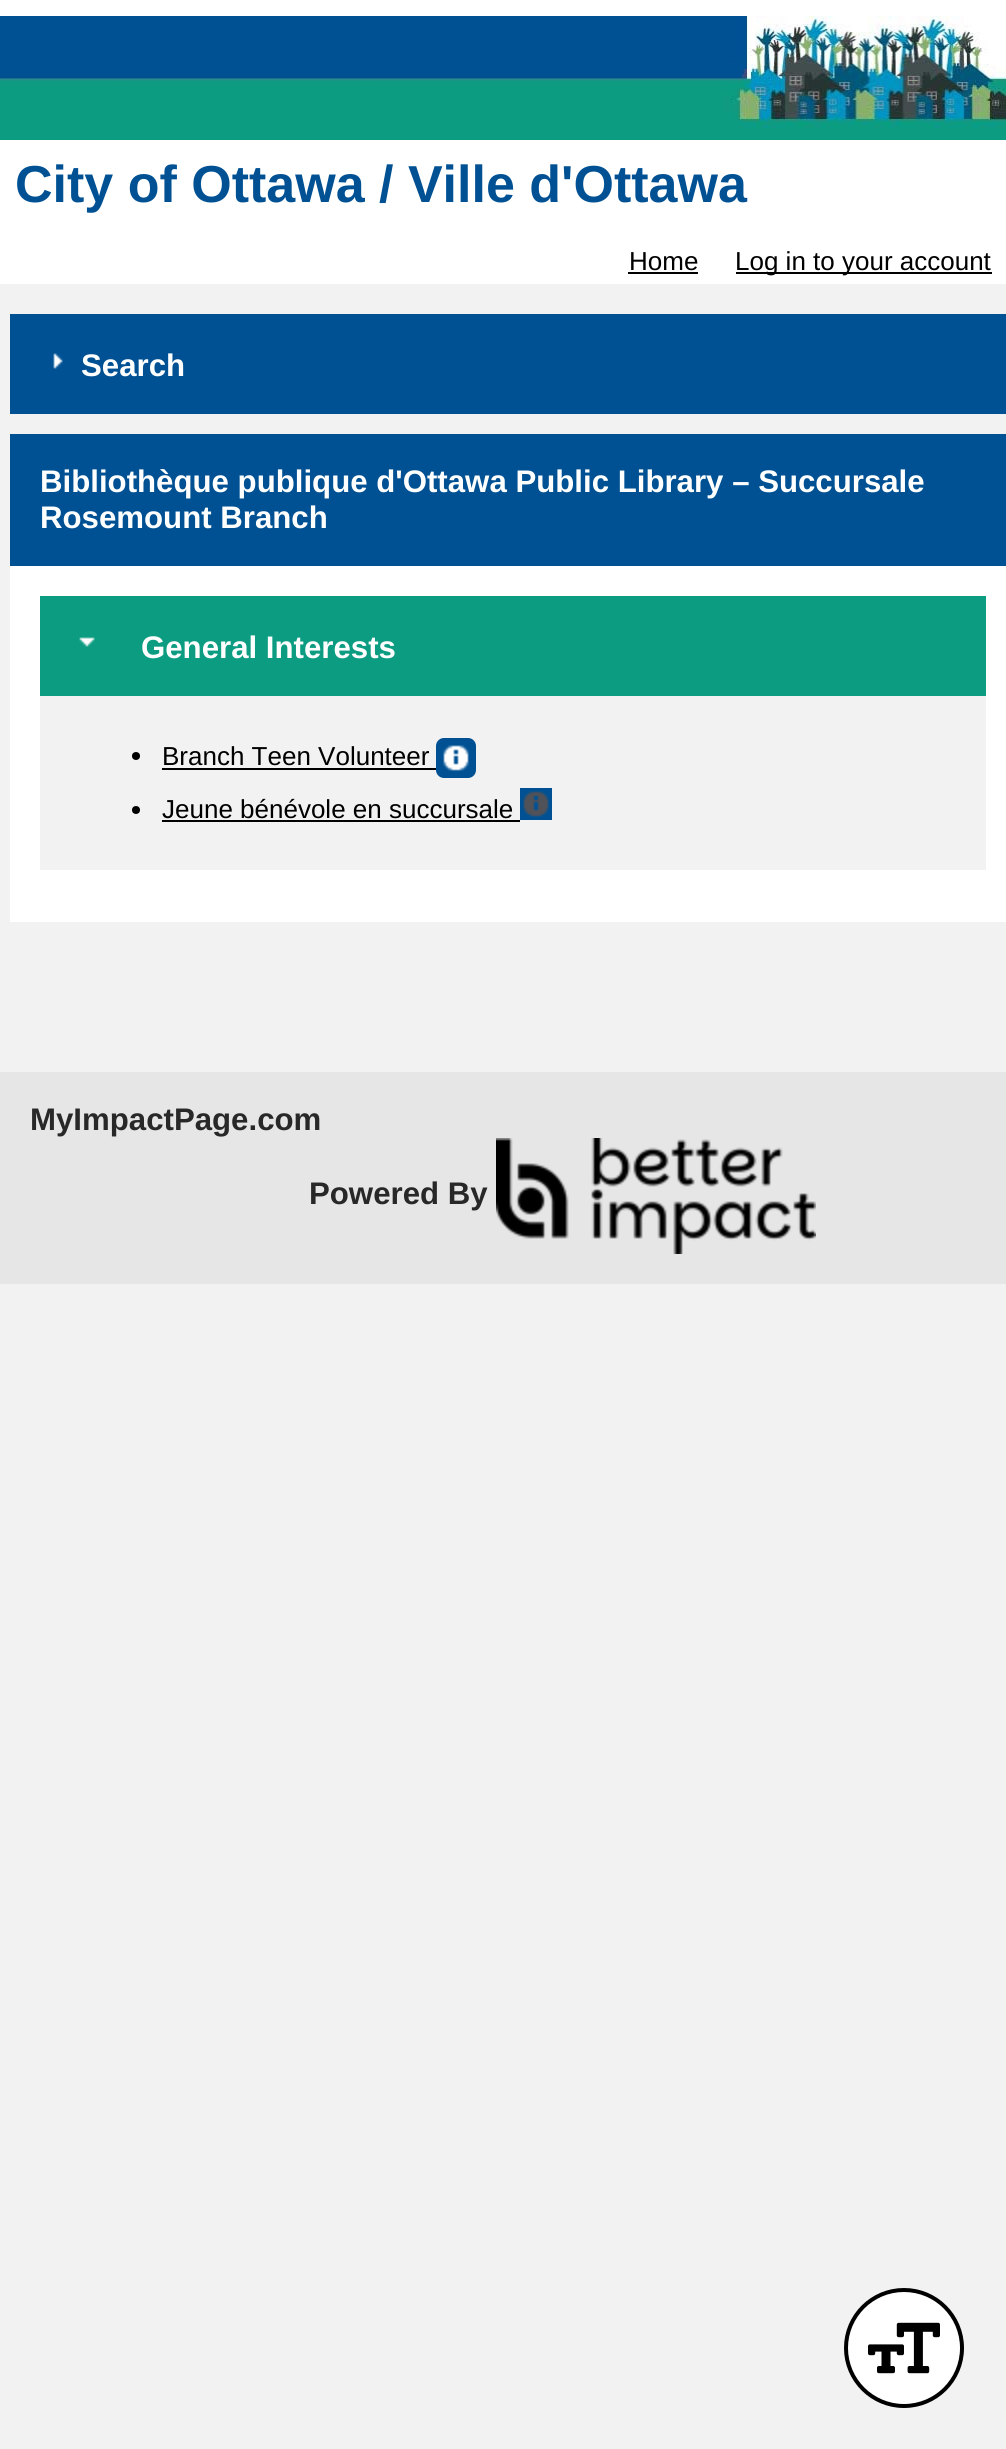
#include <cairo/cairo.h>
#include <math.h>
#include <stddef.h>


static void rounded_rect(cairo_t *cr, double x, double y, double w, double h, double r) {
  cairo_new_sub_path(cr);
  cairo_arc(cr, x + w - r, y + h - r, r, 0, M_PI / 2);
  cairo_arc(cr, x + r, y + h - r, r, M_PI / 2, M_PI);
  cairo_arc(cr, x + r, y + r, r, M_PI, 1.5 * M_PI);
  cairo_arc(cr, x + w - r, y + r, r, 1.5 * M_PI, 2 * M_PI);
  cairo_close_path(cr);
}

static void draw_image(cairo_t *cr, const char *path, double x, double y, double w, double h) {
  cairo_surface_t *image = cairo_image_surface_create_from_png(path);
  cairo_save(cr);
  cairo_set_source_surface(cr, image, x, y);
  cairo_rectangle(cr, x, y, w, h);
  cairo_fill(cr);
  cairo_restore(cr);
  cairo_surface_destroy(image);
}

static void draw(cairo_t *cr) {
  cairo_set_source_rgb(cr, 242 / 255.0, 242 / 255.0, 242 / 255.0);
  cairo_paint(cr);
  cairo_set_source_rgb(cr, 1, 1, 1);
  cairo_rectangle(cr, 0, 0, 1006, 16);
  cairo_fill(cr);
  draw_image(cr, "images/1.png", 0, 16, 1006, 124);
  cairo_rectangle(cr, 0, 140, 1006, 144);
  cairo_fill(cr);
  cairo_set_source_rgb(cr, 0, 0, 0);
  cairo_rectangle(cr, 628, 272, 70, 2);
  cairo_fill(cr);
  cairo_rectangle(cr, 736, 272, 256, 2);
  cairo_fill(cr);
  cairo_set_source_rgb(cr, 0, 81 / 255.0, 147 / 255.0);
  cairo_rectangle(cr, 10, 314, 996, 100);
  cairo_fill(cr);
  draw_image(cr, "images/2.png", 53, 353, 10, 16);
  cairo_rectangle(cr, 10, 434, 996, 132);
  cairo_fill(cr);
  cairo_set_source_rgb(cr, 1, 1, 1);
  cairo_rectangle(cr, 10, 566, 996, 356);
  cairo_fill(cr);
  cairo_set_source_rgb(cr, 12 / 255.0, 156 / 255.0, 129 / 255.0);
  cairo_rectangle(cr, 40, 596, 946, 100);
  cairo_fill(cr);
  draw_image(cr, "images/3.png", 79, 637, 16, 10);
  cairo_set_source_rgb(cr, 242 / 255.0, 242 / 255.0, 242 / 255.0);
  cairo_rectangle(cr, 40, 696, 946, 174);
  cairo_fill(cr);
  cairo_set_source_rgb(cr, 0, 0, 0);
  cairo_arc(cr, 136, 756, 4, 0, 2 * M_PI);
  cairo_fill(cr);
  cairo_rectangle(cr, 162, 768, 274, 2);
  cairo_fill(cr);
  cairo_set_source_rgb(cr, 0, 81 / 255.0, 147 / 255.0);
  rounded_rect(cr, 437, 739, 38, 38, 7);
  cairo_fill_preserve(cr);
  cairo_stroke(cr);
  draw_image(cr, "images/4.png", 443, 745, 26, 26);
  cairo_set_source_rgb(cr, 0, 0, 0);
  cairo_arc(cr, 136, 810, 4, 0, 2 * M_PI);
  cairo_fill(cr);
  cairo_rectangle(cr, 162, 820, 358, 2);
  cairo_fill(cr);
  cairo_set_source_rgb(cr, 0, 81 / 255.0, 147 / 255.0);
  cairo_rectangle(cr, 520, 788, 32, 32);
  cairo_fill(cr);
  draw_image(cr, "images/5.png", 523, 791, 26, 26);
  cairo_set_source_rgb(cr, 230 / 255.0, 230 / 255.0, 230 / 255.0);
  cairo_rectangle(cr, 0, 1072, 1006, 212);
  cairo_fill(cr);
  draw_image(cr, "images/6.png", 496, 1138, 320, 116);
  cairo_set_source_rgb(cr, 1, 1, 1);
  cairo_arc(cr, 904, 2348, 58, 0, 2 * M_PI);
  cairo_fill_preserve(cr);
  cairo_set_source_rgb(cr, 0, 0, 0);
  cairo_set_line_width(cr, 4);
  cairo_stroke(cr);
  draw_image(cr, "images/7.png", 868, 2322, 72, 52);
  cairo_select_font_face(cr, "Liberation Sans", CAIRO_FONT_SLANT_NORMAL, CAIRO_FONT_WEIGHT_BOLD);
  cairo_set_font_size(cr, 52);
  cairo_set_source_rgb(cr, 0, 81 / 255.0, 147 / 255.0);
  cairo_move_to(cr, 15, 202);
  cairo_show_text(cr, "City of Ottawa / Ville d'Ottawa");
  cairo_select_font_face(cr, "Liberation Sans", CAIRO_FONT_SLANT_NORMAL, CAIRO_FONT_WEIGHT_NORMAL);
  cairo_set_font_size(cr, 26);
  cairo_set_source_rgb(cr, 0, 0, 0);
  cairo_move_to(cr, 629, 270);
  cairo_show_text(cr, "Home");
  cairo_move_to(cr, 735, 270);
  cairo_show_text(cr, "Log in to your account");
  cairo_select_font_face(cr, "Liberation Sans", CAIRO_FONT_SLANT_NORMAL, CAIRO_FONT_WEIGHT_BOLD);
  cairo_set_font_size(cr, 31.2);
  cairo_set_source_rgb(cr, 1, 1, 1);
  cairo_move_to(cr, 81, 376);
  cairo_show_text(cr, "Search");
  cairo_move_to(cr, 40, 492);
  cairo_show_text(cr, "Bibliothèque publique d'Ottawa Public Library – Succursale");
  cairo_move_to(cr, 40, 528);
  cairo_show_text(cr, "Rosemount Branch");
  cairo_move_to(cr, 141, 658);
  cairo_show_text(cr, "General Interests");
  cairo_select_font_face(cr, "Liberation Sans", CAIRO_FONT_SLANT_NORMAL, CAIRO_FONT_WEIGHT_NORMAL);
  cairo_set_font_size(cr, 26);
  cairo_set_source_rgb(cr, 0, 0, 0);
  cairo_move_to(cr, 162, 765);
  cairo_show_text(cr, "Branch Teen Volunteer");
  cairo_move_to(cr, 162, 818);
  cairo_show_text(cr, "Jeune bénévole en succursale");
  cairo_select_font_face(cr, "Liberation Sans", CAIRO_FONT_SLANT_NORMAL, CAIRO_FONT_WEIGHT_BOLD);
  cairo_set_font_size(cr, 31.2);
  cairo_set_source_rgb(cr, 40 / 255.0, 40 / 255.0, 40 / 255.0);
  cairo_move_to(cr, 30, 1130);
  cairo_show_text(cr, "MyImpactPage.com");
  cairo_move_to(cr, 309, 1204);
  cairo_show_text(cr, "Powered By");
}

int main(void) {
  cairo_surface_t *surface = cairo_image_surface_create(CAIRO_FORMAT_RGB24, 1006, 2449);
  cairo_t *cr = cairo_create(surface);
  cairo_font_options_t *options = cairo_font_options_create();
  cairo_font_options_set_hint_metrics(options, CAIRO_HINT_METRICS_OFF);
  cairo_font_options_set_hint_style(options, CAIRO_HINT_STYLE_NONE);
  cairo_set_font_options(cr, options);
  cairo_set_miter_limit(cr, 4);
  draw(cr);
  cairo_surface_write_to_png(surface, "out.png");
  cairo_font_options_destroy(options);
  cairo_destroy(cr);
  cairo_surface_destroy(surface);
  return 0;
}
